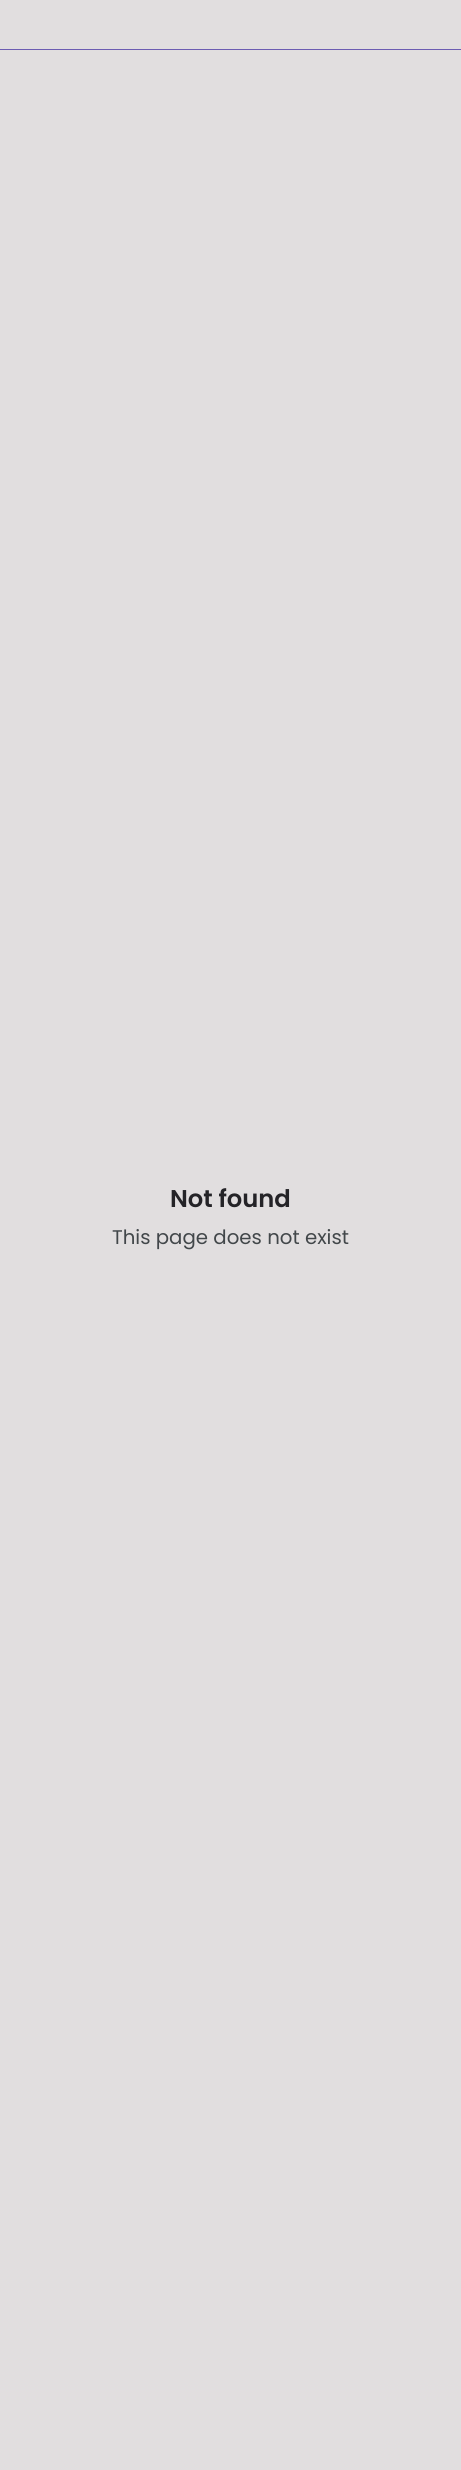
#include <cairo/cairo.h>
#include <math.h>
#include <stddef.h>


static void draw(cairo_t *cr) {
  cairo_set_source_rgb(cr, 225 / 255.0, 222 / 255.0, 223 / 255.0);
  cairo_paint(cr);
  cairo_set_source_rgb(cr, 108 / 255.0, 92 / 255.0, 178 / 255.0);
  cairo_rectangle(cr, 0, 49, 461, 1);
  cairo_fill(cr);
  cairo_select_font_face(cr, "Poppins SemiBold", CAIRO_FONT_SLANT_NORMAL, CAIRO_FONT_WEIGHT_NORMAL);
  cairo_set_font_size(cr, 24.25);
  cairo_set_source_rgb(cr, 36 / 255.0, 35 / 255.0, 39 / 255.0);
  cairo_move_to(cr, 170, 1207);
  cairo_show_text(cr, "Not found");
  cairo_select_font_face(cr, "Poppins", CAIRO_FONT_SLANT_NORMAL, CAIRO_FONT_WEIGHT_NORMAL);
  cairo_set_font_size(cr, 19.75);
  cairo_set_source_rgb(cr, 66 / 255.0, 71 / 255.0, 74 / 255.0);
  cairo_move_to(cr, 112, 1244);
  cairo_show_text(cr, "This page does not exist");
}

int main(void) {
  cairo_surface_t *surface = cairo_image_surface_create(CAIRO_FORMAT_RGB24, 461, 2470);
  cairo_t *cr = cairo_create(surface);
  cairo_font_options_t *options = cairo_font_options_create();
  cairo_font_options_set_hint_metrics(options, CAIRO_HINT_METRICS_OFF);
  cairo_font_options_set_hint_style(options, CAIRO_HINT_STYLE_NONE);
  cairo_set_font_options(cr, options);
  cairo_set_miter_limit(cr, 4);
  draw(cr);
  cairo_surface_write_to_png(surface, "out.png");
  cairo_font_options_destroy(options);
  cairo_destroy(cr);
  cairo_surface_destroy(surface);
  return 0;
}
